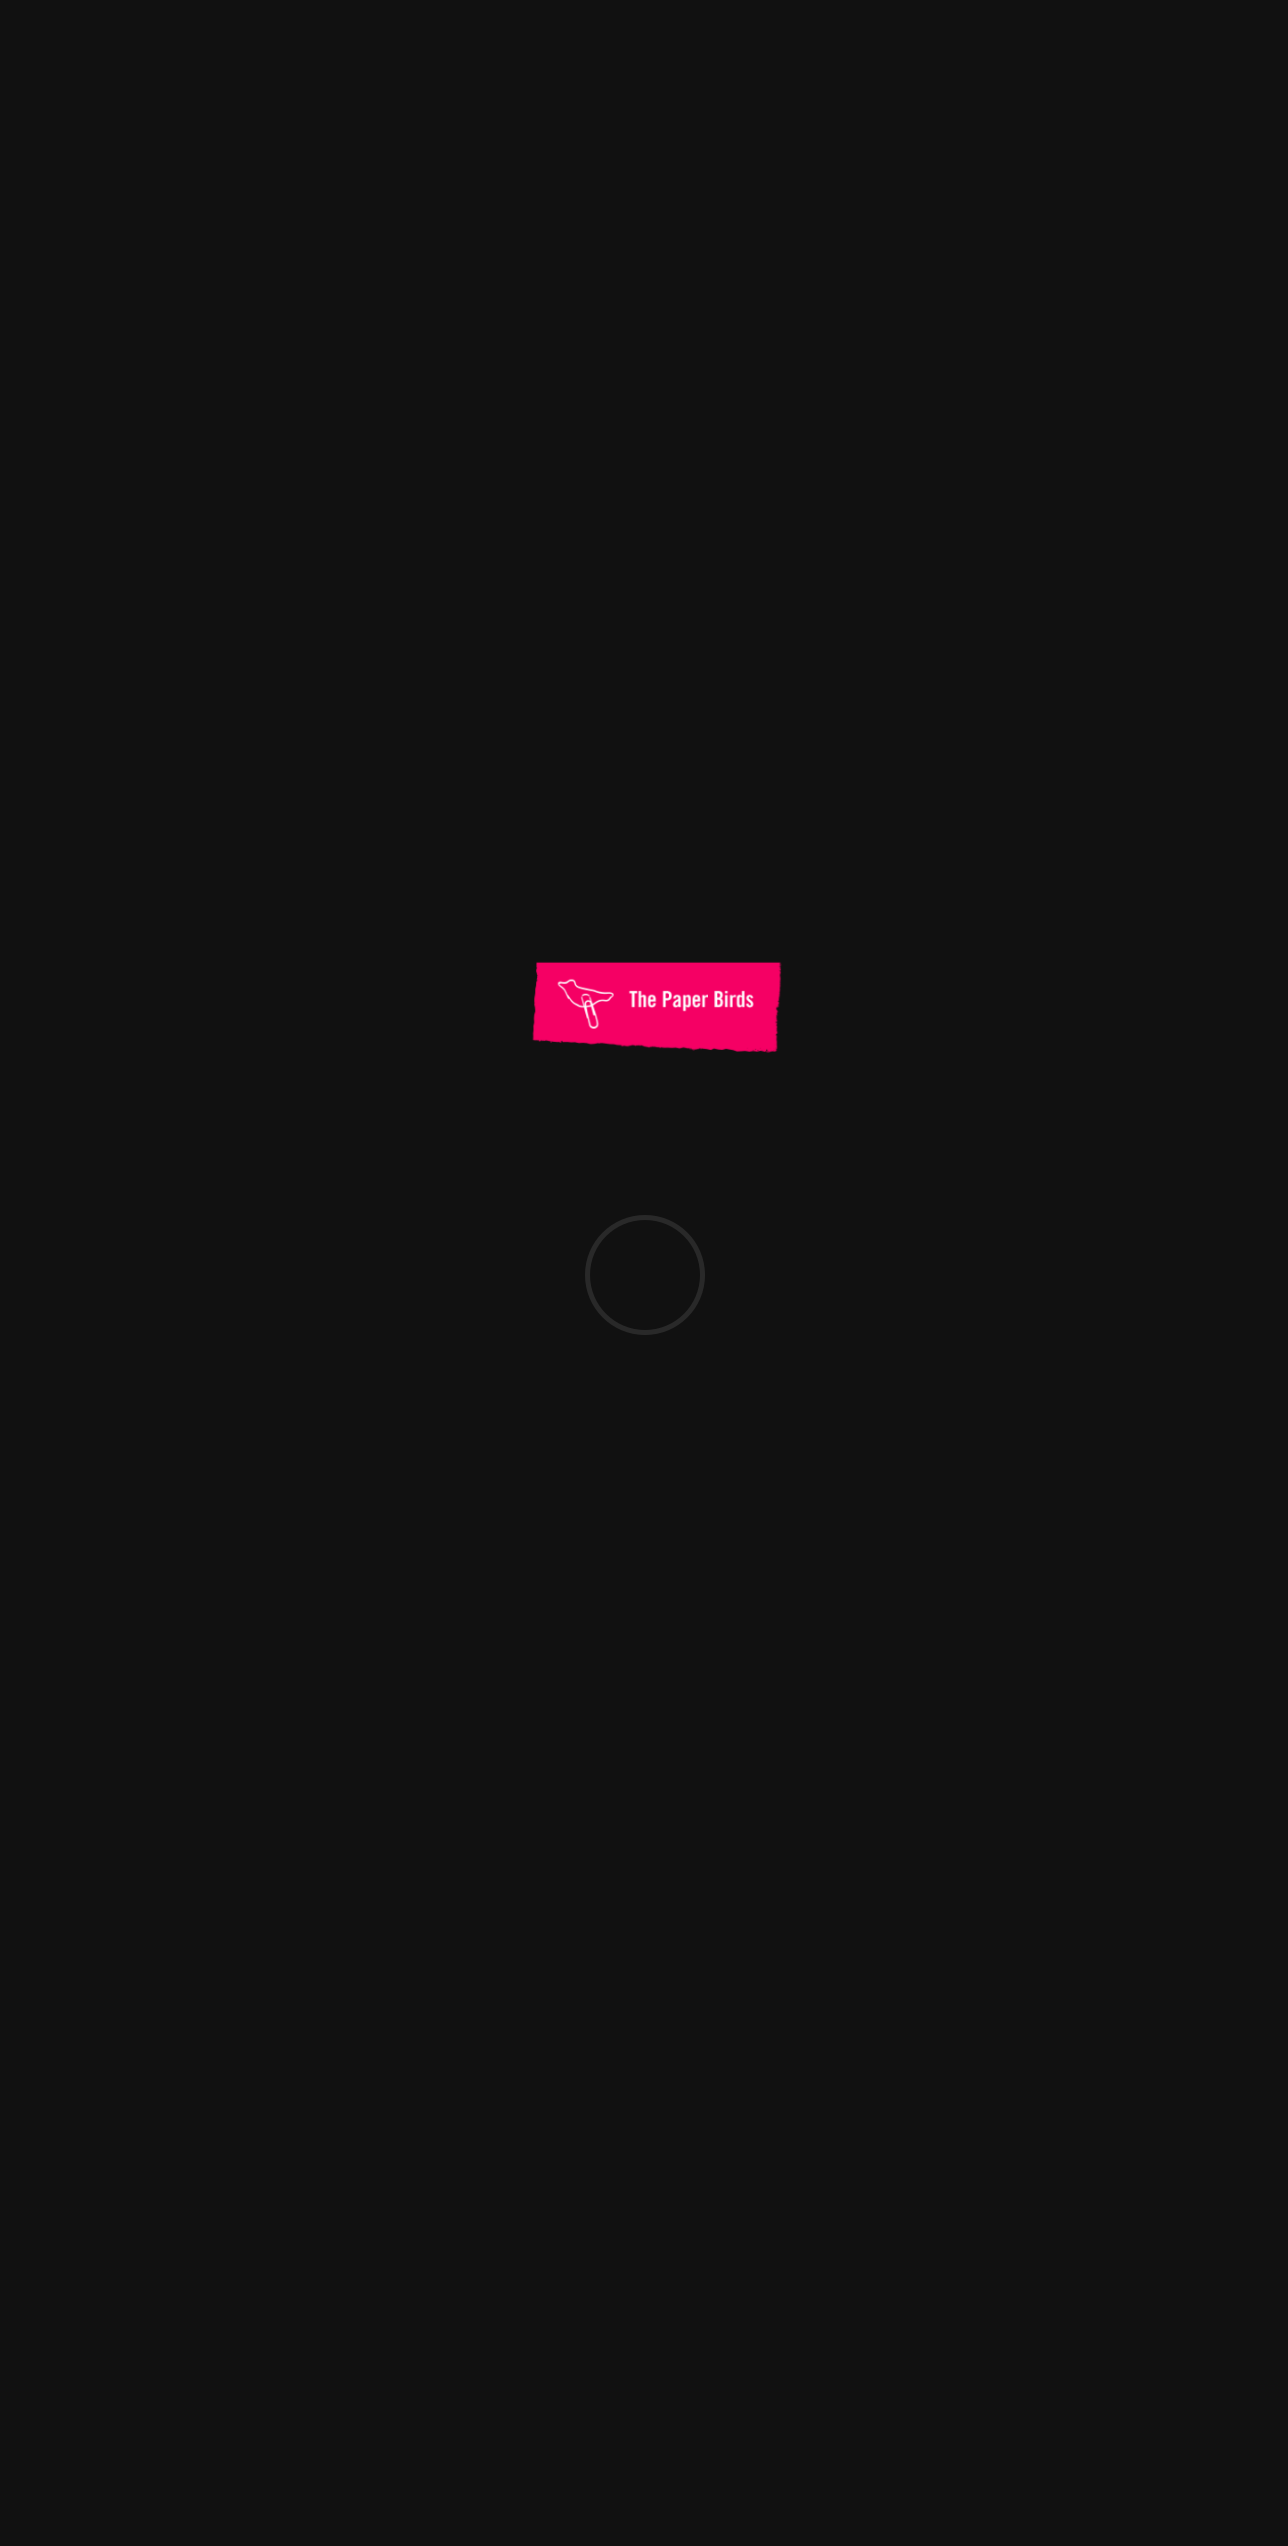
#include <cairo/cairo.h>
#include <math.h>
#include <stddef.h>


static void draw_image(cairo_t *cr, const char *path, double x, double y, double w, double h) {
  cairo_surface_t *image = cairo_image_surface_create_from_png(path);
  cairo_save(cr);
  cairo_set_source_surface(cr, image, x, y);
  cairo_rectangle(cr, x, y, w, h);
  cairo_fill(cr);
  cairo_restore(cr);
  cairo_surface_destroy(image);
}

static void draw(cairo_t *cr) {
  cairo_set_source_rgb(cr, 17 / 255.0, 17 / 255.0, 17 / 255.0);
  cairo_paint(cr);
  draw_image(cr, "images/1.png", 532, 961, 250, 92);
  cairo_arc(cr, 645, 1275, 57.5, 0, 2 * M_PI);
  cairo_set_source_rgb(cr, 41 / 255.0, 41 / 255.0, 41 / 255.0);
  cairo_set_line_width(cr, 5);
  cairo_stroke(cr);
}

int main(void) {
  cairo_surface_t *surface = cairo_image_surface_create(CAIRO_FORMAT_RGB24, 1288, 2546);
  cairo_t *cr = cairo_create(surface);
  cairo_font_options_t *options = cairo_font_options_create();
  cairo_font_options_set_hint_metrics(options, CAIRO_HINT_METRICS_OFF);
  cairo_font_options_set_hint_style(options, CAIRO_HINT_STYLE_NONE);
  cairo_set_font_options(cr, options);
  cairo_set_miter_limit(cr, 4);
  draw(cr);
  cairo_surface_write_to_png(surface, "out.png");
  cairo_font_options_destroy(options);
  cairo_destroy(cr);
  cairo_surface_destroy(surface);
  return 0;
}
